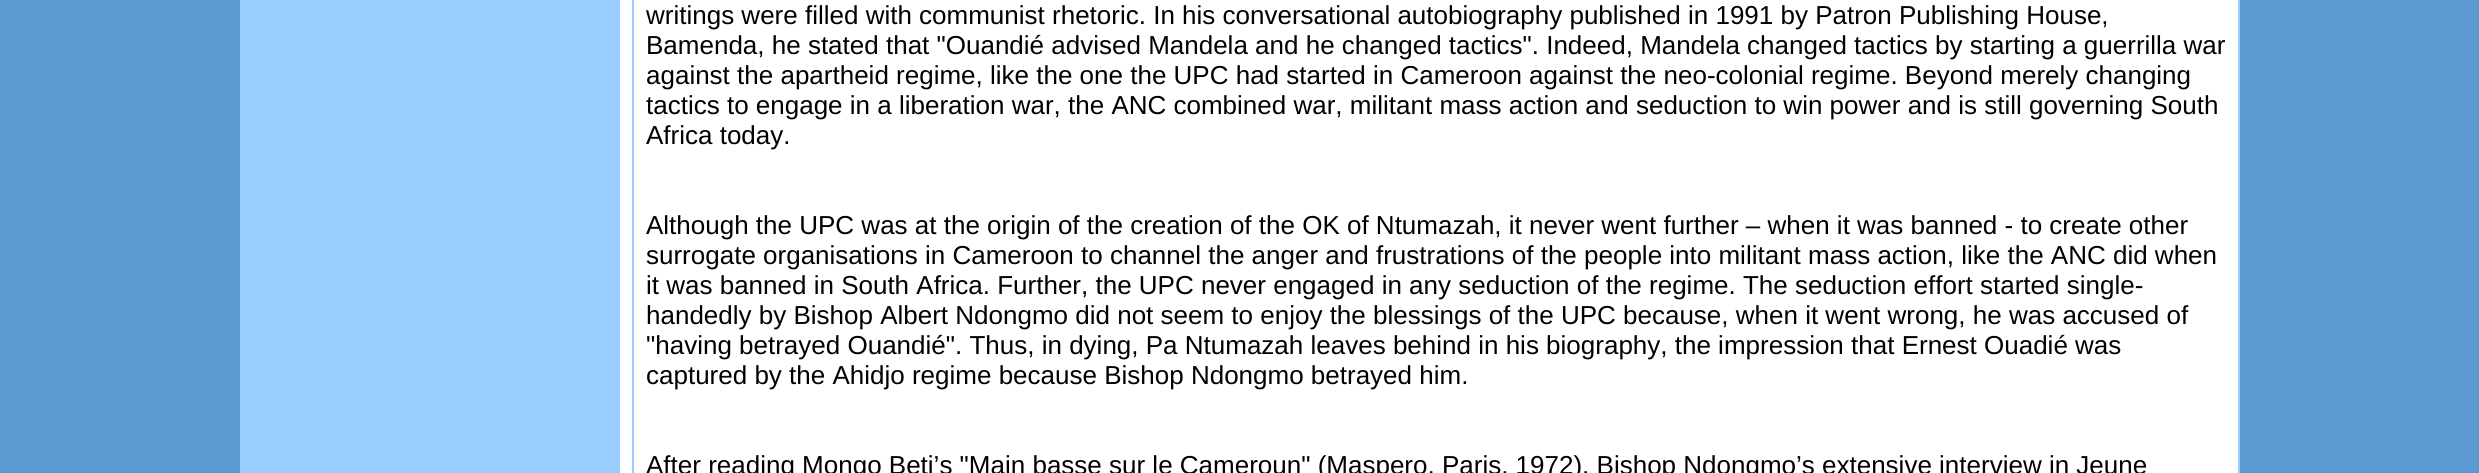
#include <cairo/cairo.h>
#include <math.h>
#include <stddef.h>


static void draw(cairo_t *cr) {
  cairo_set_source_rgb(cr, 92 / 255.0, 153 / 255.0, 210 / 255.0);
  cairo_paint(cr);
  cairo_set_source_rgb(cr, 153 / 255.0, 204 / 255.0, 1);
  cairo_rectangle(cr, 240, 0, 380, 473);
  cairo_fill(cr);
  cairo_set_source_rgb(cr, 1, 1, 1);
  cairo_rectangle(cr, 620, 0, 12, 473);
  cairo_fill(cr);
  cairo_set_source_rgb(cr, 153 / 255.0, 204 / 255.0, 1);
  cairo_rectangle(cr, 632, 0, 1608, 473);
  cairo_fill(cr);
  cairo_set_source_rgb(cr, 1, 1, 1);
  cairo_rectangle(cr, 634, 0, 1604, 473);
  cairo_fill(cr);
  cairo_select_font_face(cr, "Liberation Sans", CAIRO_FONT_SLANT_NORMAL, CAIRO_FONT_WEIGHT_NORMAL);
  cairo_set_font_size(cr, 26);
  cairo_set_source_rgb(cr, 0, 0, 0);
  cairo_move_to(cr, 646, 24);
  cairo_show_text(cr, "writings were filled with communist rhetoric. In his conversational autobiography published in 1991 by Patron Publishing House,");
  cairo_move_to(cr, 646, 54);
  cairo_show_text(cr, "Bamenda, he stated that \"Ouandié advised Mandela and he changed tactics\". Indeed, Mandela changed tactics by starting a guerrilla war");
  cairo_move_to(cr, 646, 84);
  cairo_show_text(cr, "against the apartheid regime, like the one the UPC had started in Cameroon against the neo-colonial regime. Beyond merely changing");
  cairo_move_to(cr, 646, 114);
  cairo_show_text(cr, "tactics to engage in a liberation war, the ANC combined war, militant mass action and seduction to win power and is still governing South");
  cairo_move_to(cr, 646, 144);
  cairo_show_text(cr, "Africa today.");
  cairo_move_to(cr, 646, 234);
  cairo_show_text(cr, "Although the UPC was at the origin of the creation of the OK of Ntumazah, it never went further – when it was banned - to create other");
  cairo_move_to(cr, 646, 264);
  cairo_show_text(cr, "surrogate organisations in Cameroon to channel the anger and frustrations of the people into militant mass action, like the ANC did when");
  cairo_move_to(cr, 646, 294);
  cairo_show_text(cr, "it was banned in South Africa. Further, the UPC never engaged in any seduction of the regime. The seduction effort started single-");
  cairo_move_to(cr, 646, 324);
  cairo_show_text(cr, "handedly by Bishop Albert Ndongmo did not seem to enjoy the blessings of the UPC because, when it went wrong, he was accused of");
  cairo_move_to(cr, 646, 354);
  cairo_show_text(cr, "\"having betrayed Ouandié\". Thus, in dying, Pa Ntumazah leaves behind in his biography, the impression that Ernest Ouadié was");
  cairo_move_to(cr, 646, 384);
  cairo_show_text(cr, "captured by the Ahidjo regime because Bishop Ndongmo betrayed him.");
  cairo_move_to(cr, 646, 474);
  cairo_show_text(cr, "After reading Mongo Beti’s \"Main basse sur le Cameroun\" (Maspero, Paris, 1972), Bishop Ndongmo’s extensive interview in Jeune");
}

int main(void) {
  cairo_surface_t *surface = cairo_image_surface_create(CAIRO_FORMAT_RGB24, 2479, 473);
  cairo_t *cr = cairo_create(surface);
  cairo_font_options_t *options = cairo_font_options_create();
  cairo_font_options_set_hint_metrics(options, CAIRO_HINT_METRICS_OFF);
  cairo_font_options_set_hint_style(options, CAIRO_HINT_STYLE_NONE);
  cairo_set_font_options(cr, options);
  cairo_set_miter_limit(cr, 4);
  draw(cr);
  cairo_surface_write_to_png(surface, "out.png");
  cairo_font_options_destroy(options);
  cairo_destroy(cr);
  cairo_surface_destroy(surface);
  return 0;
}
